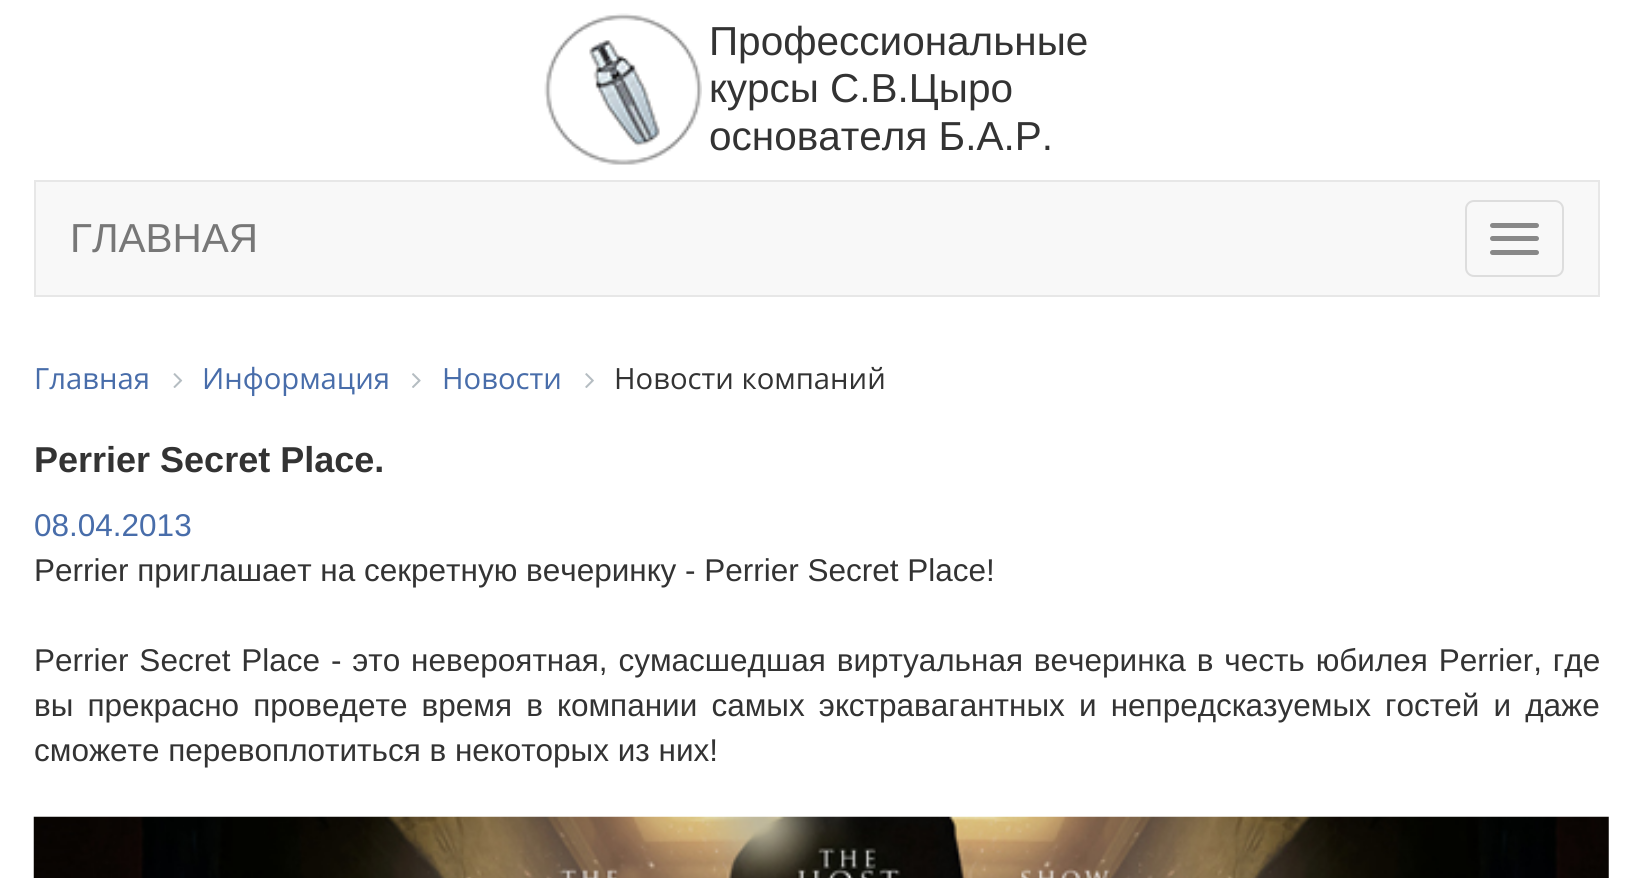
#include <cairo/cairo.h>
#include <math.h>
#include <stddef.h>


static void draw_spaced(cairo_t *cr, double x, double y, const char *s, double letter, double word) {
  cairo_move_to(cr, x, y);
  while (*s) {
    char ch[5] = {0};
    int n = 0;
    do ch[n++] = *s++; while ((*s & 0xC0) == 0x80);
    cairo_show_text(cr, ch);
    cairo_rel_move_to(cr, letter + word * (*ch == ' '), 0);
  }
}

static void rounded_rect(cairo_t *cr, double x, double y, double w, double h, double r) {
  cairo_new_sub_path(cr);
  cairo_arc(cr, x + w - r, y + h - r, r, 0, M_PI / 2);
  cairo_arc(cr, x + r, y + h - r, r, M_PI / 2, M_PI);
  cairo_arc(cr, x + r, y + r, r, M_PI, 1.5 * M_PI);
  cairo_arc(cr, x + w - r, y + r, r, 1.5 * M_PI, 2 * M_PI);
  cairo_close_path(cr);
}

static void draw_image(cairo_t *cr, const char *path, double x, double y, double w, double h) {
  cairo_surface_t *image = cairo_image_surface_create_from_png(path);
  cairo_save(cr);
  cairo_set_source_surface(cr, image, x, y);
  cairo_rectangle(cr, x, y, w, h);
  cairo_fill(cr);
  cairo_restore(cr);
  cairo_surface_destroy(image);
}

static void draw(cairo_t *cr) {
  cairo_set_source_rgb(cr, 1, 1, 1);
  cairo_paint(cr);
  draw_image(cr, "images/1.png", 544, 13, 158, 152);
  cairo_set_source_rgb(cr, 248 / 255.0, 248 / 255.0, 248 / 255.0);
  cairo_rectangle(cr, 35, 181, 1564, 115);
  cairo_fill_preserve(cr);
  cairo_set_source_rgb(cr, 231 / 255.0, 231 / 255.0, 231 / 255.0);
  cairo_stroke(cr);
  rounded_rect(cr, 1466, 201, 97, 75, 8);
  cairo_set_source_rgb(cr, 221 / 255.0, 221 / 255.0, 221 / 255.0);
  cairo_stroke(cr);
  cairo_set_source_rgb(cr, 136 / 255.0, 136 / 255.0, 136 / 255.0);
  rounded_rect(cr, 1490, 223, 49, 5, 2.5);
  cairo_fill(cr);
  rounded_rect(cr, 1490, 236, 49, 5, 2.5);
  cairo_fill(cr);
  rounded_rect(cr, 1490, 250, 49, 5, 2.5);
  cairo_fill(cr);
  draw_image(cr, "images/2.png", 173, 373, 10, 15);
  draw_image(cr, "images/3.png", 412, 373, 9, 15);
  draw_image(cr, "images/4.png", 585, 373, 9, 15);
  draw_image(cr, "images/5.png", 33, 816, 1576, 62);
  cairo_select_font_face(cr, "Liberation Sans", CAIRO_FONT_SLANT_NORMAL, CAIRO_FONT_WEIGHT_NORMAL);
  cairo_set_font_size(cr, 40.5);
  cairo_set_source_rgb(cr, 51 / 255.0, 51 / 255.0, 51 / 255.0);
  cairo_move_to(cr, 709, 55);
  cairo_show_text(cr, "Профессиональные");
  cairo_move_to(cr, 709, 102);
  cairo_show_text(cr, "курсы С.В.Цыро");
  cairo_move_to(cr, 709, 150);
  cairo_show_text(cr, "основателя Б.А.Р.");
  cairo_set_source_rgb(cr, 119 / 255.0, 119 / 255.0, 119 / 255.0);
  cairo_move_to(cr, 70, 252);
  cairo_show_text(cr, "ГЛАВНАЯ");
  cairo_select_font_face(cr, "Open Sans", CAIRO_FONT_SLANT_NORMAL, CAIRO_FONT_WEIGHT_NORMAL);
  cairo_set_font_size(cr, 29.25);
  cairo_set_source_rgb(cr, 72 / 255.0, 109 / 255.0, 170 / 255.0);
  cairo_move_to(cr, 34, 389);
  cairo_show_text(cr, "Главная");
  cairo_move_to(cr, 202, 389);
  cairo_show_text(cr, "Информация");
  cairo_move_to(cr, 442, 389);
  cairo_show_text(cr, "Новости");
  cairo_set_source_rgb(cr, 51 / 255.0, 51 / 255.0, 51 / 255.0);
  cairo_move_to(cr, 614, 389);
  cairo_show_text(cr, "Новости компаний");
  cairo_select_font_face(cr, "Liberation Sans", CAIRO_FONT_SLANT_NORMAL, CAIRO_FONT_WEIGHT_BOLD);
  cairo_set_font_size(cr, 36);
  cairo_move_to(cr, 34, 472);
  cairo_show_text(cr, "Perrier Secret Place.");
  cairo_select_font_face(cr, "Liberation Sans", CAIRO_FONT_SLANT_NORMAL, CAIRO_FONT_WEIGHT_NORMAL);
  cairo_set_font_size(cr, 31.5);
  cairo_set_source_rgb(cr, 72 / 255.0, 109 / 255.0, 170 / 255.0);
  cairo_move_to(cr, 34, 536);
  cairo_show_text(cr, "08.04.2013");
  cairo_set_source_rgb(cr, 51 / 255.0, 51 / 255.0, 51 / 255.0);
  cairo_move_to(cr, 34, 581);
  cairo_show_text(cr, "Perrier приглашает на секретную вечеринку - Perrier Secret Place!");
  draw_spaced(cr, 34, 671, "Perrier Secret Place - это невероятная, сумасшедшая виртуальная вечеринка в честь юбилея Perrier, где", 0, 2.1);
  draw_spaced(cr, 34, 716, "вы прекрасно проведете время в компании самых экстравагантных и непредсказуемых гостей и даже", 0, 5.4);
  cairo_move_to(cr, 34, 761);
  cairo_show_text(cr, "сможете перевоплотиться в некоторых из них!");
}

int main(void) {
  cairo_surface_t *surface = cairo_image_surface_create(CAIRO_FORMAT_RGB24, 1633, 878);
  cairo_t *cr = cairo_create(surface);
  cairo_font_options_t *options = cairo_font_options_create();
  cairo_font_options_set_hint_metrics(options, CAIRO_HINT_METRICS_OFF);
  cairo_font_options_set_hint_style(options, CAIRO_HINT_STYLE_NONE);
  cairo_set_font_options(cr, options);
  cairo_set_miter_limit(cr, 4);
  draw(cr);
  cairo_surface_write_to_png(surface, "out.png");
  cairo_font_options_destroy(options);
  cairo_destroy(cr);
  cairo_surface_destroy(surface);
  return 0;
}
